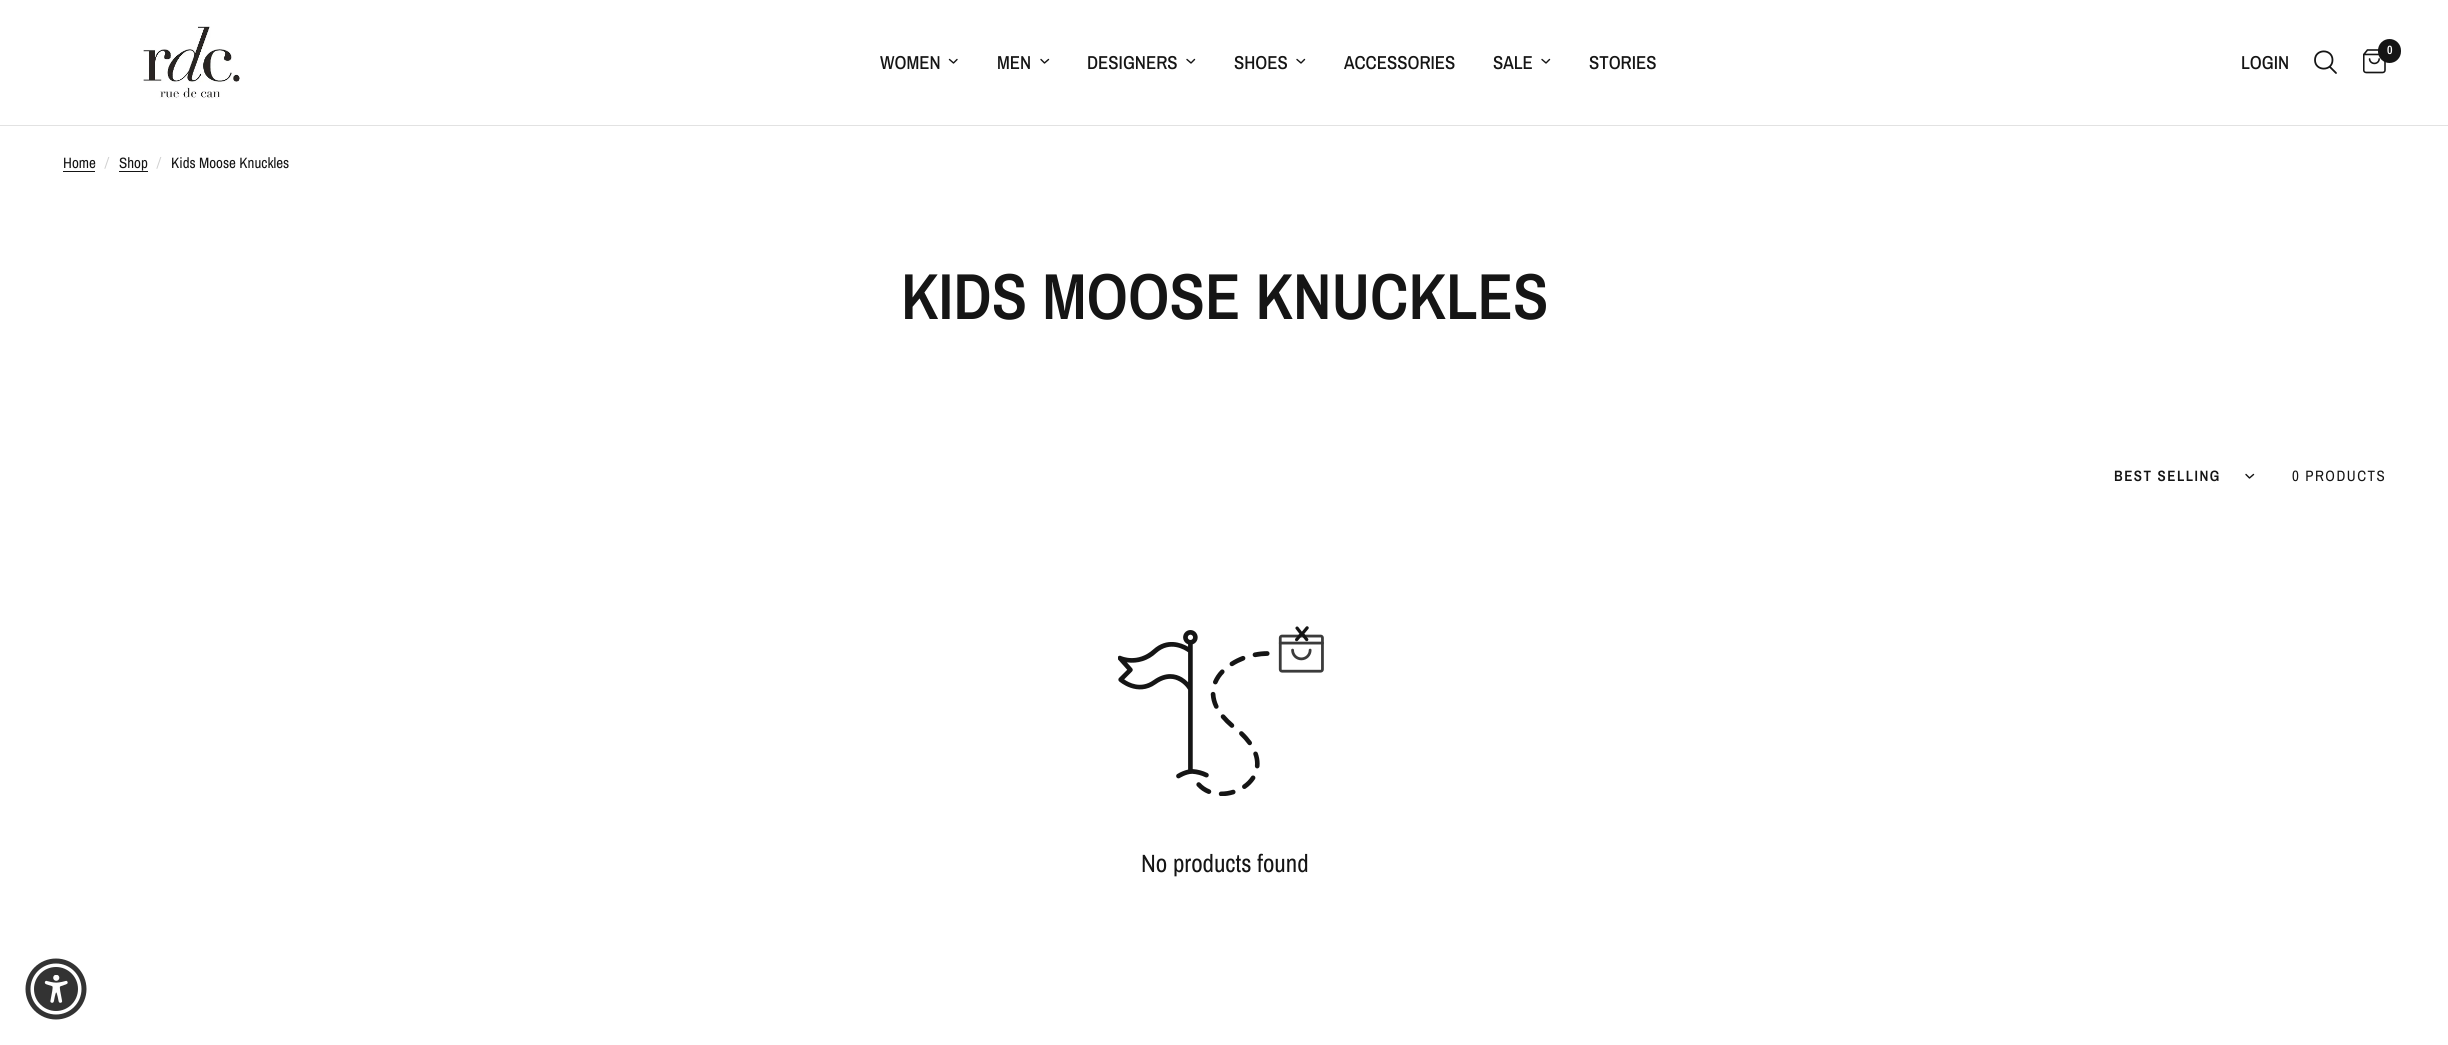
#include <cairo/cairo.h>
#include <math.h>
#include <stddef.h>


static void draw_spaced(cairo_t *cr, double x, double y, const char *s, double letter, double word) {
  cairo_move_to(cr, x, y);
  while (*s) {
    char ch[5] = {0};
    int n = 0;
    do ch[n++] = *s++; while ((*s & 0xC0) == 0x80);
    cairo_show_text(cr, ch);
    cairo_rel_move_to(cr, letter + word * (*ch == ' '), 0);
  }
}

static void rounded_rect(cairo_t *cr, double x, double y, double w, double h, double r) {
  cairo_new_sub_path(cr);
  cairo_arc(cr, x + w - r, y + h - r, r, 0, M_PI / 2);
  cairo_arc(cr, x + r, y + h - r, r, M_PI / 2, M_PI);
  cairo_arc(cr, x + r, y + r, r, M_PI, 1.5 * M_PI);
  cairo_arc(cr, x + w - r, y + r, r, 1.5 * M_PI, 2 * M_PI);
  cairo_close_path(cr);
}

static void draw_image(cairo_t *cr, const char *path, double x, double y, double w, double h) {
  cairo_surface_t *image = cairo_image_surface_create_from_png(path);
  cairo_save(cr);
  cairo_set_source_surface(cr, image, x, y);
  cairo_rectangle(cr, x, y, w, h);
  cairo_fill(cr);
  cairo_restore(cr);
  cairo_surface_destroy(image);
}

static void draw(cairo_t *cr) {
  cairo_set_source_rgb(cr, 1, 1, 1);
  cairo_paint(cr);
  cairo_set_source_rgb(cr, 226 / 255.0, 226 / 255.0, 226 / 255.0);
  cairo_rectangle(cr, 0, 125, 2448, 1);
  cairo_fill(cr);
  draw_image(cr, "images/1.png", 143, 26, 97, 74);
  cairo_new_path(cr);
  cairo_move_to(cr, 957, 59.5);
  cairo_line_to(cr, 953.5, 63);
  cairo_line_to(cr, 949.5, 59.5);
  cairo_set_source_rgb(cr, 21 / 255.0, 21 / 255.0, 21 / 255.0);
  cairo_set_line_width(cr, 1.4);
  cairo_set_line_cap(cr, CAIRO_LINE_CAP_ROUND);
  cairo_set_line_join(cr, CAIRO_LINE_JOIN_ROUND);
  cairo_stroke(cr);
  cairo_new_path(cr);
  cairo_move_to(cr, 1048.5, 59.5);
  cairo_line_to(cr, 1044.5, 63);
  cairo_line_to(cr, 1041, 59.5);
  cairo_stroke(cr);
  cairo_new_path(cr);
  cairo_move_to(cr, 1194.5, 59.5);
  cairo_line_to(cr, 1191, 63);
  cairo_line_to(cr, 1187, 59.5);
  cairo_stroke(cr);
  cairo_new_path(cr);
  cairo_move_to(cr, 1304.5, 59.5);
  cairo_line_to(cr, 1301, 63);
  cairo_line_to(cr, 1297, 59.5);
  cairo_stroke(cr);
  cairo_new_path(cr);
  cairo_move_to(cr, 1549.5, 59.5);
  cairo_line_to(cr, 1546, 63);
  cairo_line_to(cr, 1542, 59.5);
  cairo_stroke(cr);
  cairo_new_path(cr);
  cairo_move_to(cr, 2330, 67);
  cairo_line_to(cr, 2336, 73);
  cairo_move_to(cr, 2332.5, 60);
  cairo_curve_to(cr, 2332.5, 71.5, 2315, 71.5, 2315, 60);
  cairo_curve_to(cr, 2315, 48.5, 2332.5, 48.5, 2332.5, 60);
  cairo_close_path(cr);
  cairo_set_line_width(cr, 1.8);
  cairo_stroke(cr);
  draw_image(cr, "images/2.png", 2363, 49, 23, 25);
  rounded_rect(cr, 2378, 39, 23, 24, 11.5);
  cairo_fill(cr);
  cairo_rectangle(cr, 63, 171, 32, 1);
  cairo_fill(cr);
  cairo_rectangle(cr, 119, 171, 29, 1);
  cairo_fill(cr);
  cairo_new_path(cr);
  cairo_move_to(cr, 2253.5, 474.5);
  cairo_line_to(cr, 2249.5, 478);
  cairo_line_to(cr, 2246, 474.5);
  cairo_set_line_width(cr, 1.4);
  cairo_stroke(cr);
  draw_image(cr, "images/3.png", 1118, 626, 206, 170);
  cairo_set_source_rgb(cr, 51 / 255.0, 51 / 255.0, 51 / 255.0);
  cairo_arc(cr, 56, 989, 30.5, 0, 2 * M_PI);
  cairo_fill(cr);
  cairo_set_source_rgb(cr, 1, 1, 1);
  cairo_arc(cr, 56, 989, 25.5, 0, 2 * M_PI);
  cairo_fill(cr);
  cairo_set_source_rgb(cr, 51 / 255.0, 51 / 255.0, 51 / 255.0);
  cairo_arc(cr, 56, 989, 22, 0, 2 * M_PI);
  cairo_fill(cr);
  draw_image(cr, "images/4.png", 44, 975, 24, 28);
  cairo_select_font_face(cr, "Archivo Narrow Medium", CAIRO_FONT_SLANT_NORMAL, CAIRO_FONT_WEIGHT_NORMAL);
  cairo_set_font_size(cr, 18.75);
  cairo_set_source_rgb(cr, 21 / 255.0, 21 / 255.0, 21 / 255.0);
  cairo_move_to(cr, 880, 69);
  cairo_show_text(cr, "WOMEN");
  cairo_move_to(cr, 997, 69);
  cairo_show_text(cr, "MEN");
  cairo_move_to(cr, 1087, 69);
  cairo_show_text(cr, "DESIGNERS");
  cairo_move_to(cr, 1234, 69);
  cairo_show_text(cr, "SHOES");
  cairo_move_to(cr, 1344, 69);
  cairo_show_text(cr, "ACCESSORIES");
  cairo_move_to(cr, 1493, 69);
  cairo_show_text(cr, "SALE");
  cairo_move_to(cr, 1589, 69);
  cairo_show_text(cr, "STORIES");
  cairo_move_to(cr, 2241, 69);
  cairo_show_text(cr, "LOGIN");
  cairo_select_font_face(cr, "Archivo Narrow SemiBold", CAIRO_FONT_SLANT_NORMAL, CAIRO_FONT_WEIGHT_NORMAL);
  cairo_set_font_size(cr, 12);
  cairo_set_source_rgb(cr, 1, 1, 1);
  cairo_move_to(cr, 2387, 54);
  cairo_show_text(cr, "0");
  cairo_select_font_face(cr, "Archivo Narrow", CAIRO_FONT_SLANT_NORMAL, CAIRO_FONT_WEIGHT_NORMAL);
  cairo_set_font_size(cr, 15);
  cairo_set_source_rgb(cr, 21 / 255.0, 21 / 255.0, 21 / 255.0);
  cairo_move_to(cr, 63, 168);
  cairo_show_text(cr, "Home");
  cairo_select_font_face(cr, "Archivo Narrow", CAIRO_FONT_SLANT_ITALIC, CAIRO_FONT_WEIGHT_NORMAL);
  cairo_set_source_rgb(cr, 208 / 255.0, 208 / 255.0, 208 / 255.0);
  cairo_move_to(cr, 105, 168);
  cairo_show_text(cr, "/");
  cairo_select_font_face(cr, "Archivo Narrow", CAIRO_FONT_SLANT_NORMAL, CAIRO_FONT_WEIGHT_NORMAL);
  cairo_set_source_rgb(cr, 21 / 255.0, 21 / 255.0, 21 / 255.0);
  cairo_move_to(cr, 119, 168);
  cairo_show_text(cr, "Shop");
  cairo_select_font_face(cr, "Archivo Narrow", CAIRO_FONT_SLANT_ITALIC, CAIRO_FONT_WEIGHT_NORMAL);
  cairo_set_source_rgb(cr, 208 / 255.0, 208 / 255.0, 208 / 255.0);
  cairo_move_to(cr, 157, 168);
  cairo_show_text(cr, "/");
  cairo_select_font_face(cr, "Archivo Narrow", CAIRO_FONT_SLANT_NORMAL, CAIRO_FONT_WEIGHT_NORMAL);
  cairo_set_source_rgb(cr, 21 / 255.0, 21 / 255.0, 21 / 255.0);
  cairo_move_to(cr, 171, 168);
  cairo_show_text(cr, "Kids Moose Knuckles");
  cairo_select_font_face(cr, "Archivo Narrow SemiBold", CAIRO_FONT_SLANT_NORMAL, CAIRO_FONT_WEIGHT_NORMAL);
  cairo_set_font_size(cr, 65);
  cairo_move_to(cr, 901, 319);
  cairo_show_text(cr, "KIDS MOOSE KNUCKLES");
  cairo_set_font_size(cr, 15);
  draw_spaced(cr, 2114, 481, "BEST SELLING", 1.5, 0);
  cairo_select_font_face(cr, "Archivo Narrow", CAIRO_FONT_SLANT_NORMAL, CAIRO_FONT_WEIGHT_NORMAL);
  draw_spaced(cr, 2292, 481, "0 PRODUCTS", 1.5, 0);
  cairo_set_font_size(cr, 25);
  cairo_move_to(cr, 1141, 872);
  cairo_show_text(cr, "No products found");
}

int main(void) {
  cairo_surface_t *surface = cairo_image_surface_create(CAIRO_FORMAT_RGB24, 2448, 1045);
  cairo_t *cr = cairo_create(surface);
  cairo_font_options_t *options = cairo_font_options_create();
  cairo_font_options_set_hint_metrics(options, CAIRO_HINT_METRICS_OFF);
  cairo_font_options_set_hint_style(options, CAIRO_HINT_STYLE_NONE);
  cairo_set_font_options(cr, options);
  cairo_set_miter_limit(cr, 4);
  draw(cr);
  cairo_surface_write_to_png(surface, "out.png");
  cairo_font_options_destroy(options);
  cairo_destroy(cr);
  cairo_surface_destroy(surface);
  return 0;
}
